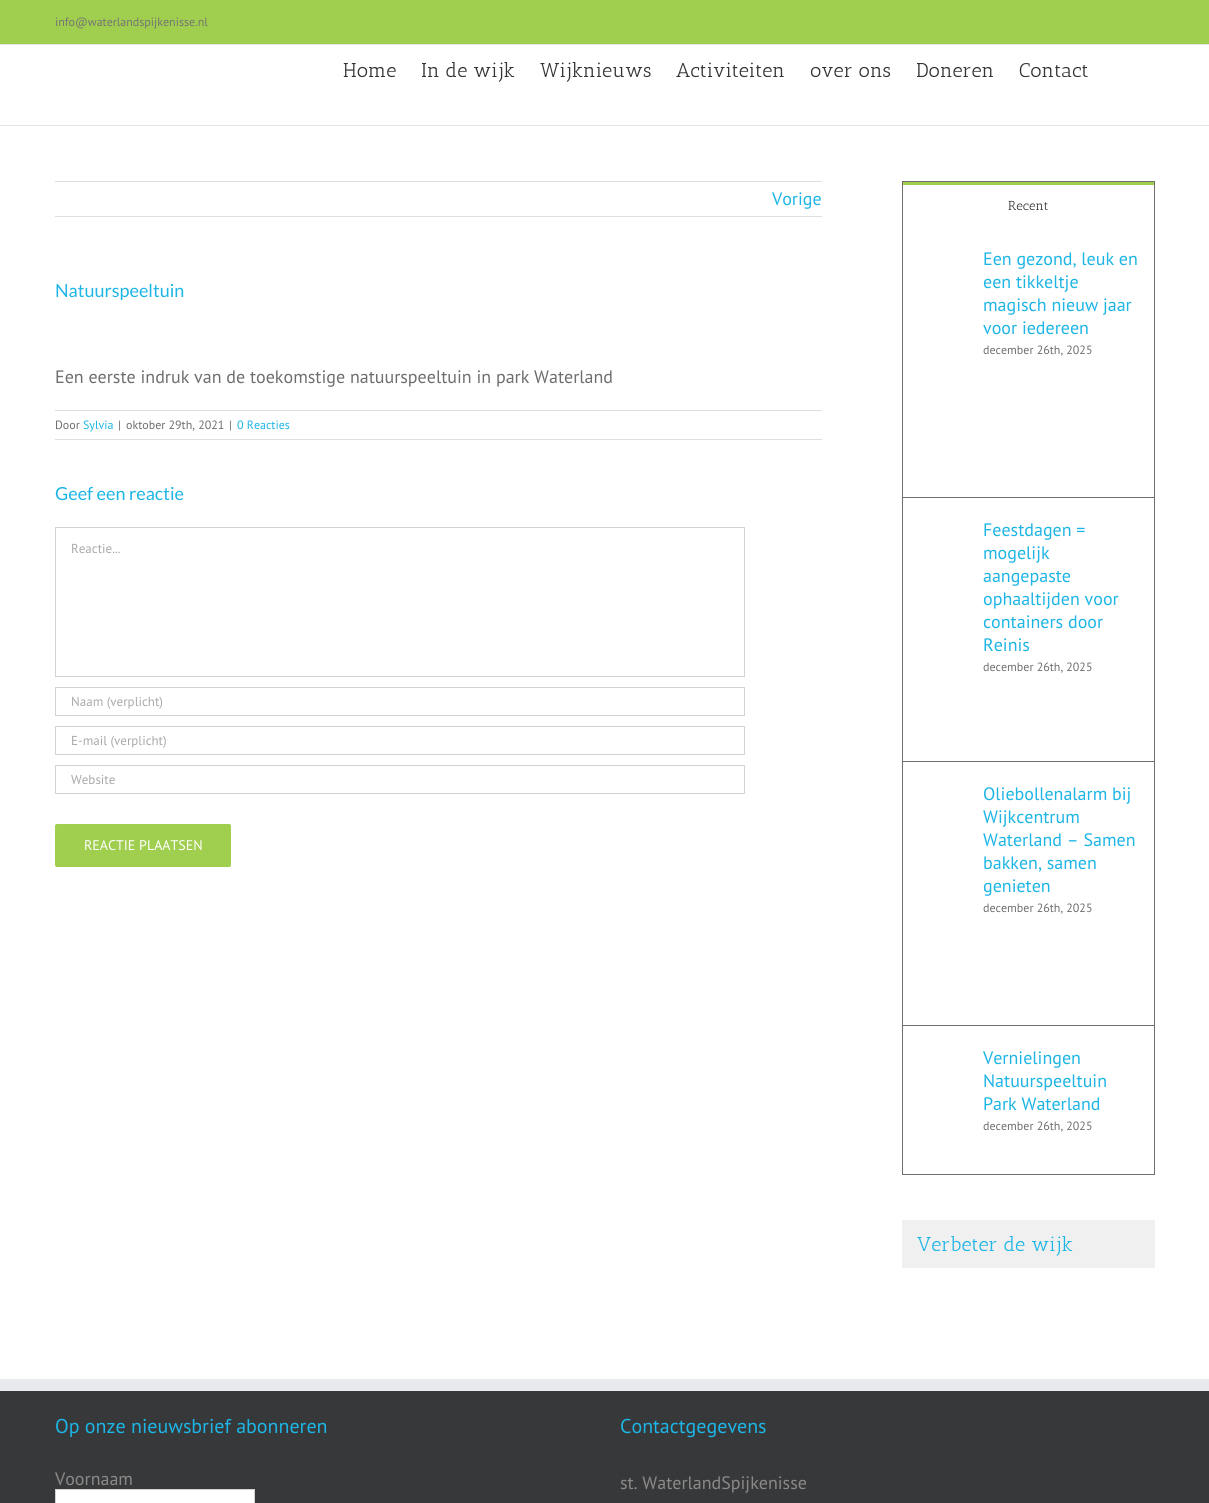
#include <cairo/cairo.h>
#include <math.h>
#include <stddef.h>


static void rounded_rect(cairo_t *cr, double x, double y, double w, double h, double r) {
  cairo_new_sub_path(cr);
  cairo_arc(cr, x + w - r, y + h - r, r, 0, M_PI / 2);
  cairo_arc(cr, x + r, y + h - r, r, M_PI / 2, M_PI);
  cairo_arc(cr, x + r, y + r, r, M_PI, 1.5 * M_PI);
  cairo_arc(cr, x + w - r, y + r, r, 1.5 * M_PI, 2 * M_PI);
  cairo_close_path(cr);
}

static void draw(cairo_t *cr) {
  cairo_set_source_rgb(cr, 1, 1, 1);
  cairo_paint(cr);
  cairo_set_source_rgb(cr, 160 / 255.0, 206 / 255.0, 78 / 255.0);
  cairo_rectangle(cr, 0, 0, 1209, 44);
  cairo_fill(cr);
  cairo_set_source_rgb(cr, 229 / 255.0, 229 / 255.0, 229 / 255.0);
  cairo_rectangle(cr, 0, 44, 1209, 1);
  cairo_fill(cr);
  cairo_rectangle(cr, 0, 125, 1209, 1);
  cairo_fill(cr);
  cairo_set_source_rgb(cr, 224 / 255.0, 222 / 255.0, 222 / 255.0);
  cairo_rectangle(cr, 55, 181, 767, 1);
  cairo_fill(cr);
  cairo_rectangle(cr, 55, 216, 767, 1);
  cairo_fill(cr);
  cairo_rectangle(cr, 55, 410, 767, 1);
  cairo_fill(cr);
  cairo_rectangle(cr, 55, 439, 767, 1);
  cairo_fill(cr);
  cairo_rectangle(cr, 55.5, 527.5, 689, 149);
  cairo_set_source_rgb(cr, 210 / 255.0, 210 / 255.0, 210 / 255.0);
  cairo_set_line_width(cr, 1);
  cairo_stroke(cr);
  cairo_rectangle(cr, 55.5, 687.5, 689, 28);
  cairo_stroke(cr);
  cairo_rectangle(cr, 55.5, 726.5, 689, 28);
  cairo_stroke(cr);
  cairo_rectangle(cr, 55.5, 765.5, 689, 28);
  cairo_stroke(cr);
  cairo_set_source_rgb(cr, 160 / 255.0, 206 / 255.0, 78 / 255.0);
  rounded_rect(cr, 55, 824, 176, 43, 2);
  cairo_fill(cr);
  cairo_rectangle(cr, 902.5, 181.5, 252, 993);
  cairo_set_source_rgb(cr, 111 / 255.0, 110 / 255.0, 108 / 255.0);
  cairo_stroke(cr);
  cairo_set_source_rgb(cr, 160 / 255.0, 206 / 255.0, 78 / 255.0);
  cairo_rectangle(cr, 903, 182, 251, 3);
  cairo_fill(cr);
  cairo_set_source_rgb(cr, 111 / 255.0, 110 / 255.0, 108 / 255.0);
  cairo_rectangle(cr, 903, 497, 251, 1);
  cairo_fill(cr);
  cairo_rectangle(cr, 903, 761, 251, 1);
  cairo_fill(cr);
  cairo_rectangle(cr, 903, 1025, 251, 1);
  cairo_fill(cr);
  cairo_set_source_rgb(cr, 240 / 255.0, 240 / 255.0, 240 / 255.0);
  cairo_rectangle(cr, 902, 1220, 253, 48);
  cairo_fill(cr);
  cairo_set_source_rgb(cr, 54 / 255.0, 56 / 255.0, 57 / 255.0);
  cairo_rectangle(cr, 0, 1391, 1209, 112);
  cairo_fill(cr);
  cairo_set_source_rgb(cr, 233 / 255.0, 234 / 255.0, 238 / 255.0);
  cairo_rectangle(cr, 0, 1379, 1209, 12);
  cairo_fill(cr);
  cairo_set_source_rgb(cr, 1, 1, 1);
  cairo_rectangle(cr, 55.5, 1489.5, 199, 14);
  cairo_fill_preserve(cr);
  cairo_set_source_rgb(cr, 210 / 255.0, 210 / 255.0, 210 / 255.0);
  cairo_stroke(cr);
  cairo_select_font_face(cr, "PT Sans", CAIRO_FONT_SLANT_NORMAL, CAIRO_FONT_WEIGHT_NORMAL);
  cairo_set_font_size(cr, 12);
  cairo_set_source_rgb(cr, 116 / 255.0, 116 / 255.0, 116 / 255.0);
  cairo_move_to(cr, 55, 26);
  cairo_show_text(cr, "info@waterlandspijkenisse.nl");
  cairo_select_font_face(cr, "Antic Slab", CAIRO_FONT_SLANT_NORMAL, CAIRO_FONT_WEIGHT_NORMAL);
  cairo_set_font_size(cr, 20);
  cairo_set_source_rgb(cr, 51 / 255.0, 51 / 255.0, 51 / 255.0);
  cairo_move_to(cr, 343, 77);
  cairo_show_text(cr, "Home");
  cairo_move_to(cr, 421, 77);
  cairo_show_text(cr, "In de wijk");
  cairo_move_to(cr, 540, 77);
  cairo_show_text(cr, "Wijknieuws");
  cairo_move_to(cr, 676, 77);
  cairo_show_text(cr, "Activiteiten");
  cairo_move_to(cr, 810, 77);
  cairo_show_text(cr, "over ons");
  cairo_move_to(cr, 916, 77);
  cairo_show_text(cr, "Doneren");
  cairo_move_to(cr, 1019, 77);
  cairo_show_text(cr, "Contact");
  cairo_select_font_face(cr, "PT Sans", CAIRO_FONT_SLANT_NORMAL, CAIRO_FONT_WEIGHT_NORMAL);
  cairo_set_font_size(cr, 18);
  cairo_set_source_rgb(cr, 29 / 255.0, 181 / 255.0, 229 / 255.0);
  cairo_move_to(cr, 772, 205);
  cairo_show_text(cr, "Vorige");
  cairo_select_font_face(cr, "Lato", CAIRO_FONT_SLANT_NORMAL, CAIRO_FONT_WEIGHT_NORMAL);
  cairo_move_to(cr, 55, 297);
  cairo_show_text(cr, "Natuurspeeltuin");
  cairo_select_font_face(cr, "PT Sans", CAIRO_FONT_SLANT_NORMAL, CAIRO_FONT_WEIGHT_NORMAL);
  cairo_set_source_rgb(cr, 111 / 255.0, 110 / 255.0, 108 / 255.0);
  cairo_move_to(cr, 55, 383);
  cairo_show_text(cr, "Een eerste indruk van de toekomstige natuurspeeltuin in park Waterland");
  cairo_set_font_size(cr, 12);
  cairo_move_to(cr, 55, 429);
  cairo_show_text(cr, "Door");
  cairo_set_source_rgb(cr, 29 / 255.0, 181 / 255.0, 229 / 255.0);
  cairo_move_to(cr, 83, 429);
  cairo_show_text(cr, "Sylvia");
  cairo_set_source_rgb(cr, 111 / 255.0, 110 / 255.0, 108 / 255.0);
  cairo_move_to(cr, 118, 429);
  cairo_show_text(cr, "|");
  cairo_move_to(cr, 126, 429);
  cairo_show_text(cr, "oktober 29th, 2021");
  cairo_move_to(cr, 229, 429);
  cairo_show_text(cr, "|");
  cairo_set_source_rgb(cr, 29 / 255.0, 181 / 255.0, 229 / 255.0);
  cairo_move_to(cr, 237, 429);
  cairo_show_text(cr, "0 Reacties");
  cairo_select_font_face(cr, "Lato", CAIRO_FONT_SLANT_NORMAL, CAIRO_FONT_WEIGHT_NORMAL);
  cairo_set_font_size(cr, 18);
  cairo_move_to(cr, 55, 500);
  cairo_show_text(cr, "Geef een reactie");
  cairo_select_font_face(cr, "PT Sans", CAIRO_FONT_SLANT_NORMAL, CAIRO_FONT_WEIGHT_NORMAL);
  cairo_set_font_size(cr, 13);
  cairo_set_source_rgb(cr, 170 / 255.0, 169 / 255.0, 169 / 255.0);
  cairo_move_to(cr, 71, 553);
  cairo_show_text(cr, "Reactie...");
  cairo_move_to(cr, 71, 706);
  cairo_show_text(cr, "Naam (verplicht)");
  cairo_move_to(cr, 71, 745);
  cairo_show_text(cr, "E-mail (verplicht)");
  cairo_move_to(cr, 71, 784);
  cairo_show_text(cr, "Website");
  cairo_set_font_size(cr, 14);
  cairo_set_source_rgb(cr, 1, 1, 1);
  cairo_move_to(cr, 84, 850);
  cairo_show_text(cr, "REACTIE PLAATSEN");
  cairo_select_font_face(cr, "Antic Slab", CAIRO_FONT_SLANT_NORMAL, CAIRO_FONT_WEIGHT_NORMAL);
  cairo_set_font_size(cr, 13);
  cairo_set_source_rgb(cr, 51 / 255.0, 51 / 255.0, 51 / 255.0);
  cairo_move_to(cr, 1008, 210);
  cairo_show_text(cr, "Recent");
  cairo_select_font_face(cr, "PT Sans", CAIRO_FONT_SLANT_NORMAL, CAIRO_FONT_WEIGHT_NORMAL);
  cairo_set_font_size(cr, 18);
  cairo_set_source_rgb(cr, 29 / 255.0, 181 / 255.0, 229 / 255.0);
  cairo_move_to(cr, 983, 265);
  cairo_show_text(cr, "Een gezond, leuk en");
  cairo_move_to(cr, 983, 288);
  cairo_show_text(cr, "een tikkeltje");
  cairo_move_to(cr, 983, 311);
  cairo_show_text(cr, "magisch nieuw jaar");
  cairo_move_to(cr, 983, 334);
  cairo_show_text(cr, "voor iedereen");
  cairo_set_font_size(cr, 12);
  cairo_set_source_rgb(cr, 111 / 255.0, 110 / 255.0, 108 / 255.0);
  cairo_move_to(cr, 983, 354);
  cairo_show_text(cr, "december 26th, 2025");
  cairo_set_font_size(cr, 18);
  cairo_set_source_rgb(cr, 29 / 255.0, 181 / 255.0, 229 / 255.0);
  cairo_move_to(cr, 983, 536);
  cairo_show_text(cr, "Feestdagen =");
  cairo_move_to(cr, 983, 559);
  cairo_show_text(cr, "mogelijk");
  cairo_move_to(cr, 983, 582);
  cairo_show_text(cr, "aangepaste");
  cairo_move_to(cr, 983, 605);
  cairo_show_text(cr, "ophaaltijden voor");
  cairo_move_to(cr, 983, 628);
  cairo_show_text(cr, "containers door");
  cairo_move_to(cr, 983, 651);
  cairo_show_text(cr, "Reinis");
  cairo_set_font_size(cr, 12);
  cairo_set_source_rgb(cr, 111 / 255.0, 110 / 255.0, 108 / 255.0);
  cairo_move_to(cr, 983, 671);
  cairo_show_text(cr, "december 26th, 2025");
  cairo_set_font_size(cr, 18);
  cairo_set_source_rgb(cr, 29 / 255.0, 181 / 255.0, 229 / 255.0);
  cairo_move_to(cr, 983, 800);
  cairo_show_text(cr, "Oliebollenalarm bij");
  cairo_move_to(cr, 983, 823);
  cairo_show_text(cr, "Wijkcentrum");
  cairo_move_to(cr, 983, 846);
  cairo_show_text(cr, "Waterland – Samen");
  cairo_move_to(cr, 983, 869);
  cairo_show_text(cr, "bakken, samen");
  cairo_move_to(cr, 983, 892);
  cairo_show_text(cr, "genieten");
  cairo_set_font_size(cr, 12);
  cairo_set_source_rgb(cr, 111 / 255.0, 110 / 255.0, 108 / 255.0);
  cairo_move_to(cr, 983, 912);
  cairo_show_text(cr, "december 26th, 2025");
  cairo_set_font_size(cr, 18);
  cairo_set_source_rgb(cr, 29 / 255.0, 181 / 255.0, 229 / 255.0);
  cairo_move_to(cr, 983, 1064);
  cairo_show_text(cr, "Vernielingen");
  cairo_move_to(cr, 983, 1087);
  cairo_show_text(cr, "Natuurspeeltuin");
  cairo_move_to(cr, 983, 1110);
  cairo_show_text(cr, "Park Waterland");
  cairo_set_font_size(cr, 12);
  cairo_set_source_rgb(cr, 111 / 255.0, 110 / 255.0, 108 / 255.0);
  cairo_move_to(cr, 983, 1130);
  cairo_show_text(cr, "december 26th, 2025");
  cairo_select_font_face(cr, "Antic Slab", CAIRO_FONT_SLANT_NORMAL, CAIRO_FONT_WEIGHT_NORMAL);
  cairo_set_font_size(cr, 20);
  cairo_set_source_rgb(cr, 29 / 255.0, 181 / 255.0, 229 / 255.0);
  cairo_move_to(cr, 917, 1251);
  cairo_show_text(cr, "Verbeter de wijk");
  cairo_select_font_face(cr, "PT Sans", CAIRO_FONT_SLANT_NORMAL, CAIRO_FONT_WEIGHT_NORMAL);
  cairo_move_to(cr, 55, 1433);
  cairo_show_text(cr, "Op onze nieuwsbrief abonneren");
  cairo_set_font_size(cr, 18);
  cairo_set_source_rgb(cr, 140 / 255.0, 137 / 255.0, 137 / 255.0);
  cairo_move_to(cr, 55, 1485);
  cairo_show_text(cr, "Voornaam");
  cairo_set_font_size(cr, 20);
  cairo_set_source_rgb(cr, 29 / 255.0, 181 / 255.0, 229 / 255.0);
  cairo_move_to(cr, 620, 1433);
  cairo_show_text(cr, "Contactgegevens");
  cairo_set_font_size(cr, 18);
  cairo_set_source_rgb(cr, 140 / 255.0, 137 / 255.0, 137 / 255.0);
  cairo_move_to(cr, 620, 1489);
  cairo_show_text(cr, "st. WaterlandSpijkenisse");
}

int main(void) {
  cairo_surface_t *surface = cairo_image_surface_create(CAIRO_FORMAT_RGB24, 1209, 1503);
  cairo_t *cr = cairo_create(surface);
  cairo_font_options_t *options = cairo_font_options_create();
  cairo_font_options_set_hint_metrics(options, CAIRO_HINT_METRICS_OFF);
  cairo_font_options_set_hint_style(options, CAIRO_HINT_STYLE_NONE);
  cairo_set_font_options(cr, options);
  cairo_set_miter_limit(cr, 4);
  draw(cr);
  cairo_surface_write_to_png(surface, "out.png");
  cairo_font_options_destroy(options);
  cairo_destroy(cr);
  cairo_surface_destroy(surface);
  return 0;
}
